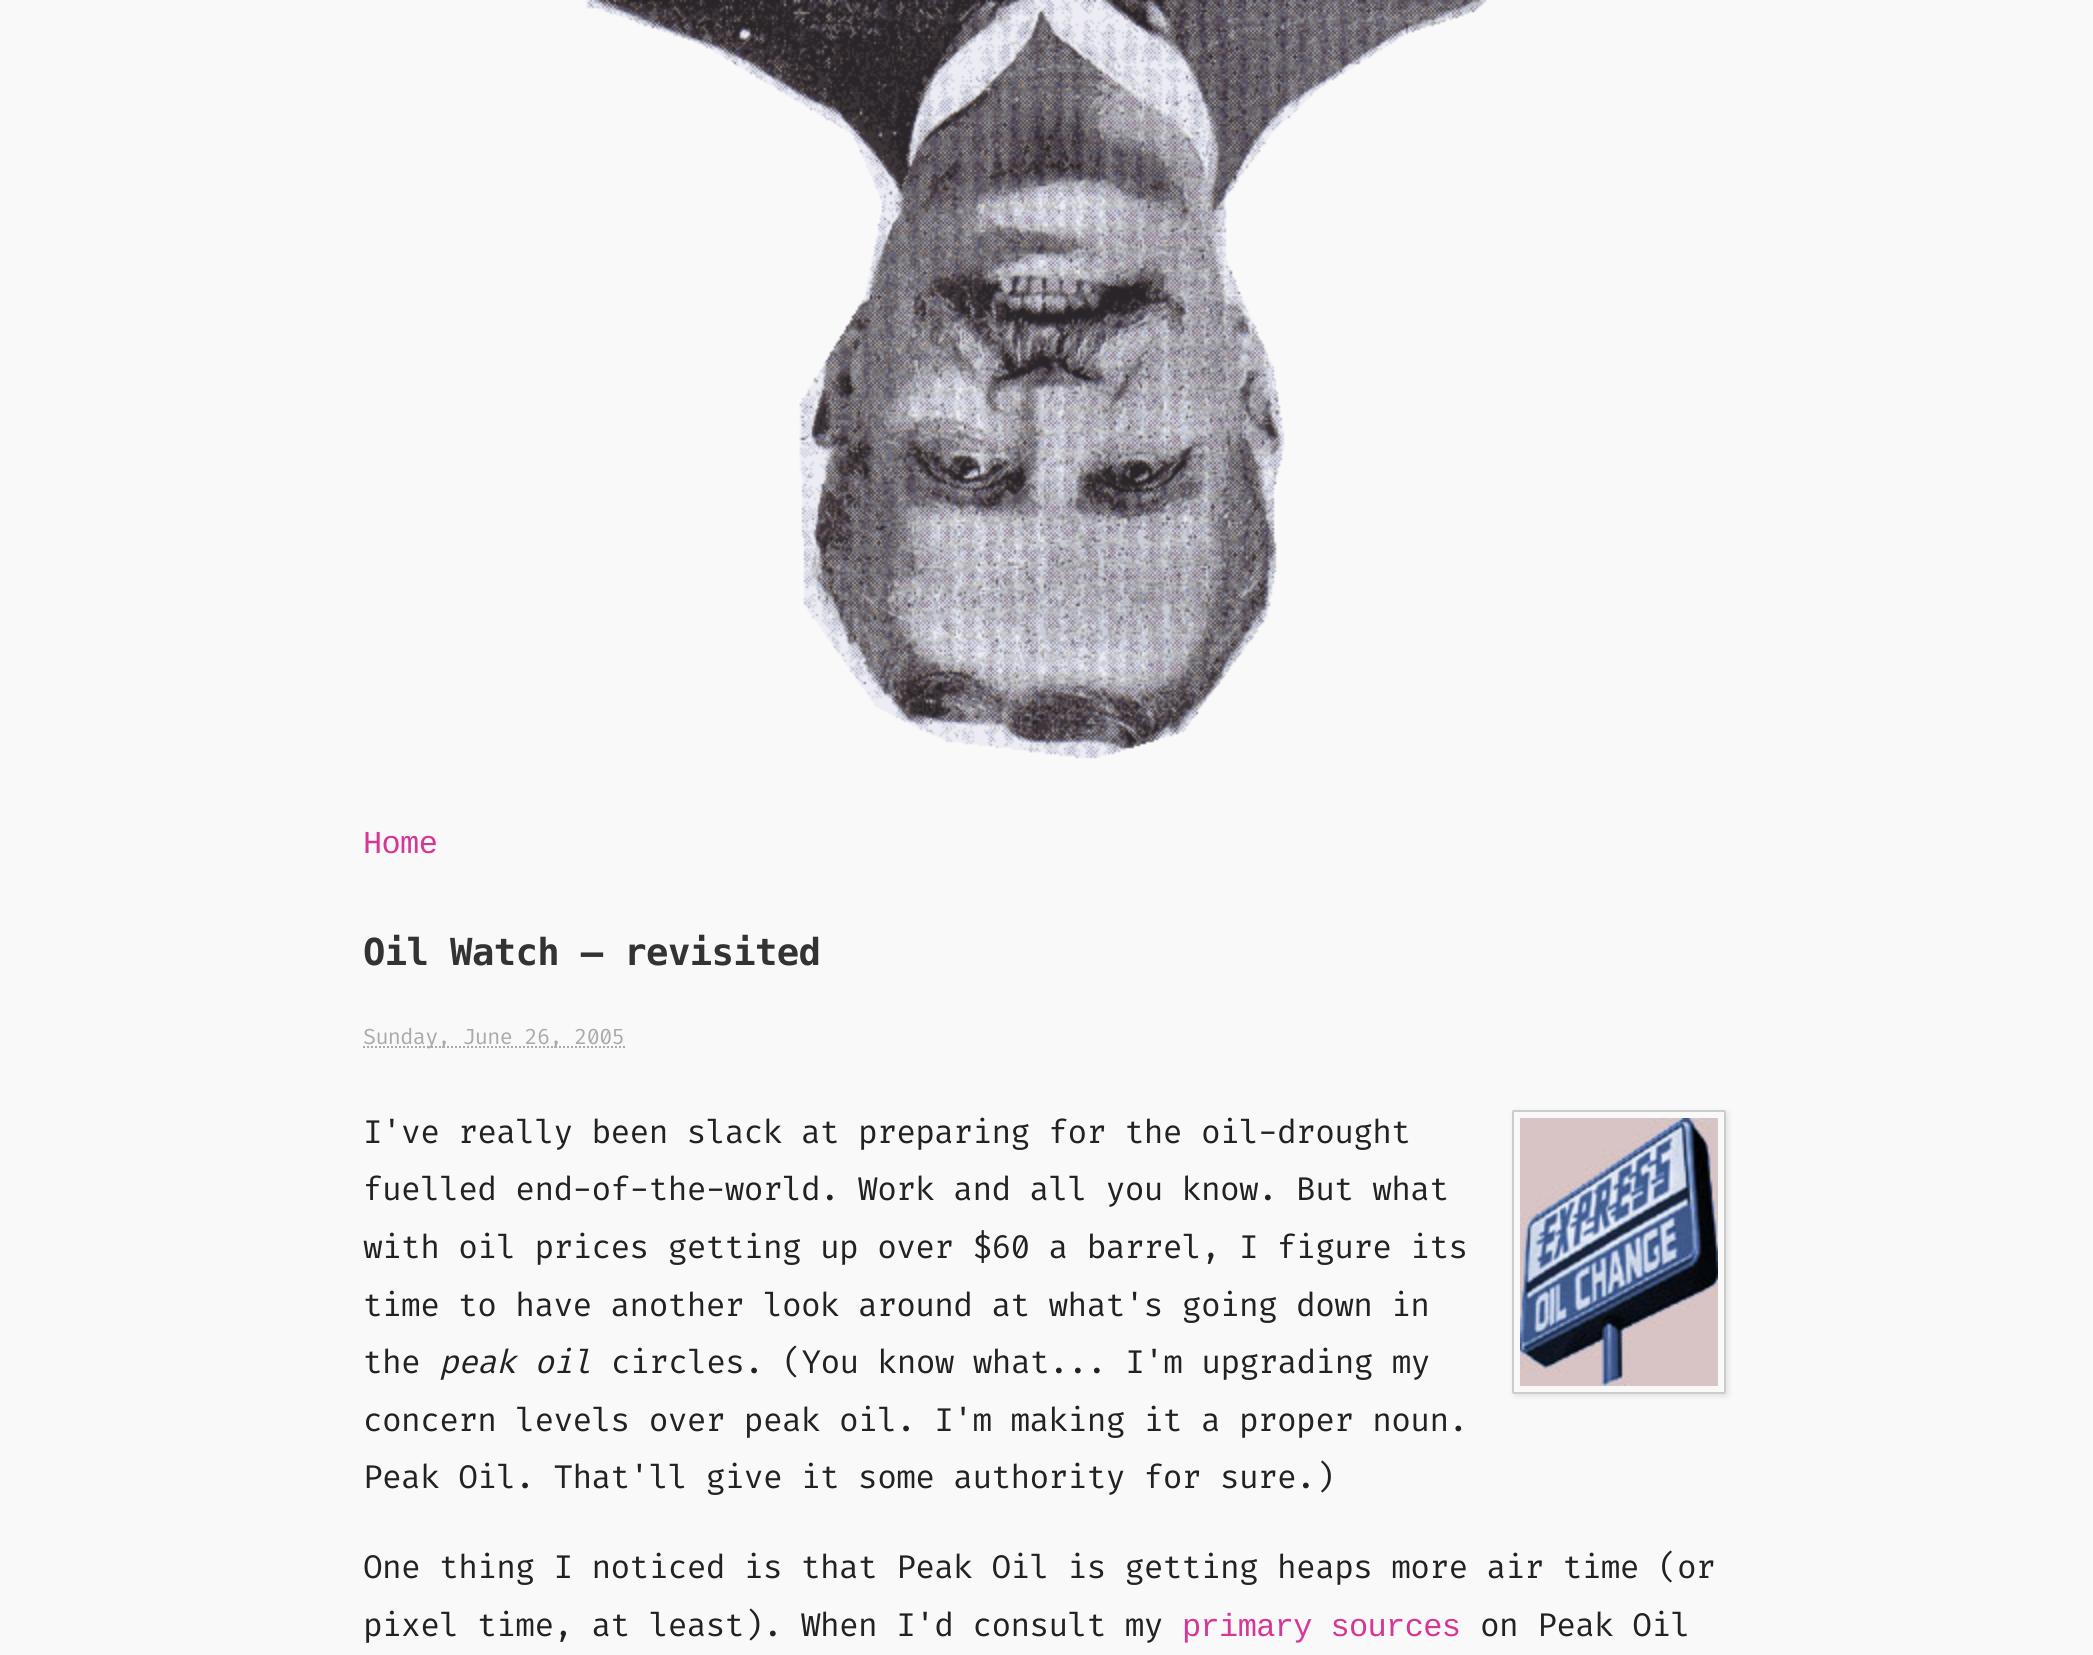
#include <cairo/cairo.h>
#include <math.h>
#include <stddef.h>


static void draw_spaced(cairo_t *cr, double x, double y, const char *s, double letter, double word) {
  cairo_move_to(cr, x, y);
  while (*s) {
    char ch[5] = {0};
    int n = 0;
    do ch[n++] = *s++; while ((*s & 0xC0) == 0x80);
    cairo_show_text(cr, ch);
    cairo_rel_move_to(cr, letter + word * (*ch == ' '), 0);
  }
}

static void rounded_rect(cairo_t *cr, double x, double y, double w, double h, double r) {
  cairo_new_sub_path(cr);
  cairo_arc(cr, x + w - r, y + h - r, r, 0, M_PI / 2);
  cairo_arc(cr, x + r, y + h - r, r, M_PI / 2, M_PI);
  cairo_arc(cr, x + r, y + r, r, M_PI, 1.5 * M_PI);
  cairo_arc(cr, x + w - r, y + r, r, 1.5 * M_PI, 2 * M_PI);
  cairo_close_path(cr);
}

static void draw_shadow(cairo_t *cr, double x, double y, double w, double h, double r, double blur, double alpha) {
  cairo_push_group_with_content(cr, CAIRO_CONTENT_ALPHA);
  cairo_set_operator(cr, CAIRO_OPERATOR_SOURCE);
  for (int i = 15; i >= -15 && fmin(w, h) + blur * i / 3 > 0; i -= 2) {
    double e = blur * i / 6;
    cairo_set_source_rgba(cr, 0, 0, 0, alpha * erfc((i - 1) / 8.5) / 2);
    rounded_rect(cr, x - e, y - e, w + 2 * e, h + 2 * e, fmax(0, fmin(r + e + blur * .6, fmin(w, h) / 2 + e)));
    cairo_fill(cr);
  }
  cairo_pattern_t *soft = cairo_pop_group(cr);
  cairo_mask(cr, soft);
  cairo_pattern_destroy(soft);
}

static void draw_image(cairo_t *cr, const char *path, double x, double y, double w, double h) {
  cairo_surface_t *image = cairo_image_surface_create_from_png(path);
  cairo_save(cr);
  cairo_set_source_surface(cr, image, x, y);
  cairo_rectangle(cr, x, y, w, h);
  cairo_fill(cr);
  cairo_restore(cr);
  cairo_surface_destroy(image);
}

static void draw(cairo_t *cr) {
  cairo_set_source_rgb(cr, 249 / 255.0, 249 / 255.0, 249 / 255.0);
  cairo_paint(cr);
  draw_image(cr, "images/1.png", 586, 0, 901, 759);
  cairo_new_path(cr);
  cairo_move_to(cr, 363, 1047);
  cairo_line_to(cr, 625, 1047);
  cairo_set_source_rgb(cr, 170 / 255.0, 170 / 255.0, 170 / 255.0);
  cairo_set_dash(cr, (double[]){2, 2}, 2, 0);
  cairo_stroke(cr);
  cairo_save(cr);
  cairo_set_fill_rule(cr, CAIRO_FILL_RULE_EVEN_ODD);
  cairo_new_path(cr);
  cairo_move_to(cr, 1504, 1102);
  cairo_line_to(cr, 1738, 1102);
  cairo_line_to(cr, 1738, 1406);
  cairo_line_to(cr, 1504, 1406);
  cairo_close_path(cr);
  cairo_move_to(cr, 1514, 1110);
  cairo_line_to(cr, 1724, 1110);
  cairo_curve_to(cr, 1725, 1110, 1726, 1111, 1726, 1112);
  cairo_line_to(cr, 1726, 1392);
  cairo_curve_to(cr, 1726, 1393, 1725, 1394, 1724, 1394);
  cairo_line_to(cr, 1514, 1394);
  cairo_curve_to(cr, 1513, 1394, 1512, 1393, 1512, 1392);
  cairo_line_to(cr, 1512, 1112);
  cairo_curve_to(cr, 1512, 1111, 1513, 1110, 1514, 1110);
  cairo_close_path(cr);
  cairo_clip(cr);
  cairo_set_source_rgb(cr, 0, 0, 0);
  draw_shadow(cr, 1514, 1112, 214, 284, 2, 3, 0.1);
  cairo_restore(cr);
  rounded_rect(cr, 1513, 1111, 212, 282, 1);
  cairo_set_source_rgb(cr, 204 / 255.0, 204 / 255.0, 204 / 255.0);
  cairo_set_dash(cr, NULL, 0, 0);
  cairo_stroke(cr);
  draw_image(cr, "images/2.png", 1520, 1118, 198, 268);
  cairo_select_font_face(cr, "Liberation Mono", CAIRO_FONT_SLANT_NORMAL, CAIRO_FONT_WEIGHT_NORMAL);
  cairo_set_font_size(cr, 32);
  cairo_set_source_rgb(cr, 214 / 255.0, 54 / 255.0, 149 / 255.0);
  draw_spaced(cr, 363, 853, "Home", -0.65, 0);
  cairo_select_font_face(cr, "DejaVu Sans Mono", CAIRO_FONT_SLANT_NORMAL, CAIRO_FONT_WEIGHT_BOLD);
  cairo_set_font_size(cr, 37.25);
  cairo_set_source_rgb(cr, 51 / 255.0, 51 / 255.0, 51 / 255.0);
  draw_spaced(cr, 363, 965, "Oil Watch – revisited", -0.65, 0);
  cairo_select_font_face(cr, "Fira Code", CAIRO_FONT_SLANT_NORMAL, CAIRO_FONT_WEIGHT_NORMAL);
  cairo_set_font_size(cr, 21.25);
  cairo_set_source_rgb(cr, 170 / 255.0, 170 / 255.0, 170 / 255.0);
  draw_spaced(cr, 363, 1044, "Sunday, June 26, 2005", -0.65, 0);
  cairo_set_font_size(cr, 32);
  cairo_set_source_rgb(cr, 34 / 255.0, 34 / 255.0, 34 / 255.0);
  draw_spaced(cr, 363, 1143, "I've really been slack at preparing for the oil-drought", -0.65, 0);
  draw_spaced(cr, 363, 1200, "fuelled end-of-the-world. Work and all you know. But what", -0.65, 0);
  draw_spaced(cr, 363, 1258, "with oil prices getting up over $60 a barrel, I figure its", -0.65, 0);
  draw_spaced(cr, 363, 1316, "time to have another look around at what's going down in", -0.65, 0);
  draw_spaced(cr, 363, 1373, "the", -0.65, 0);
  cairo_select_font_face(cr, "Fira Code", CAIRO_FONT_SLANT_ITALIC, CAIRO_FONT_WEIGHT_NORMAL);
  draw_spaced(cr, 439, 1373, "peak oil", -0.65, 0);
  cairo_select_font_face(cr, "Fira Code", CAIRO_FONT_SLANT_NORMAL, CAIRO_FONT_WEIGHT_NORMAL);
  draw_spaced(cr, 611, 1373, "circles. (You know what... I'm upgrading my", -0.65, 0);
  draw_spaced(cr, 363, 1431, "concern levels over peak oil. I'm making it a proper noun.", -0.65, 0);
  draw_spaced(cr, 363, 1488, "Peak Oil. That'll give it some authority for sure.)", -0.65, 0);
  draw_spaced(cr, 363, 1578, "One thing I noticed is that Peak Oil is getting heaps more air time (or", -0.65, 0);
  draw_spaced(cr, 363, 1636, "pixel time, at least). When I'd consult my", -0.65, 0);
  cairo_select_font_face(cr, "Liberation Mono", CAIRO_FONT_SLANT_NORMAL, CAIRO_FONT_WEIGHT_NORMAL);
  cairo_set_source_rgb(cr, 214 / 255.0, 54 / 255.0, 149 / 255.0);
  draw_spaced(cr, 1182, 1636, "primary sources", -0.65, 0);
  cairo_select_font_face(cr, "Fira Code", CAIRO_FONT_SLANT_NORMAL, CAIRO_FONT_WEIGHT_NORMAL);
  cairo_set_source_rgb(cr, 34 / 255.0, 34 / 255.0, 34 / 255.0);
  draw_spaced(cr, 1480, 1636, "on Peak Oil", -0.65, 0);
}

int main(void) {
  cairo_surface_t *surface = cairo_image_surface_create(CAIRO_FORMAT_RGB24, 2093, 1655);
  cairo_t *cr = cairo_create(surface);
  cairo_font_options_t *options = cairo_font_options_create();
  cairo_font_options_set_hint_metrics(options, CAIRO_HINT_METRICS_OFF);
  cairo_font_options_set_hint_style(options, CAIRO_HINT_STYLE_NONE);
  cairo_set_font_options(cr, options);
  cairo_set_miter_limit(cr, 4);
  draw(cr);
  cairo_surface_write_to_png(surface, "out.png");
  cairo_font_options_destroy(options);
  cairo_destroy(cr);
  cairo_surface_destroy(surface);
  return 0;
}
